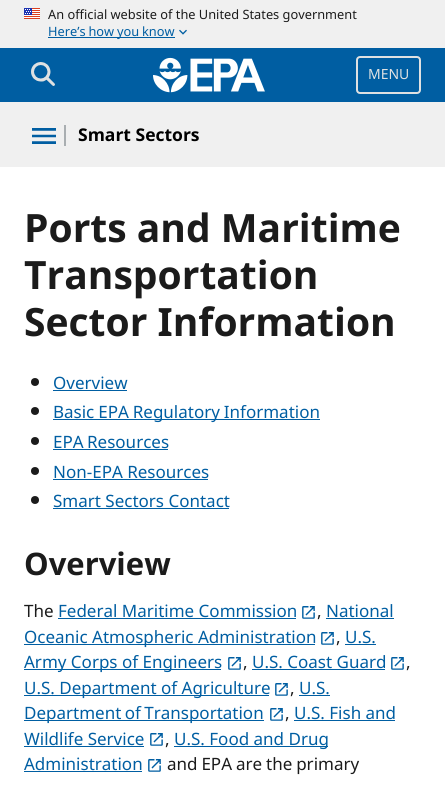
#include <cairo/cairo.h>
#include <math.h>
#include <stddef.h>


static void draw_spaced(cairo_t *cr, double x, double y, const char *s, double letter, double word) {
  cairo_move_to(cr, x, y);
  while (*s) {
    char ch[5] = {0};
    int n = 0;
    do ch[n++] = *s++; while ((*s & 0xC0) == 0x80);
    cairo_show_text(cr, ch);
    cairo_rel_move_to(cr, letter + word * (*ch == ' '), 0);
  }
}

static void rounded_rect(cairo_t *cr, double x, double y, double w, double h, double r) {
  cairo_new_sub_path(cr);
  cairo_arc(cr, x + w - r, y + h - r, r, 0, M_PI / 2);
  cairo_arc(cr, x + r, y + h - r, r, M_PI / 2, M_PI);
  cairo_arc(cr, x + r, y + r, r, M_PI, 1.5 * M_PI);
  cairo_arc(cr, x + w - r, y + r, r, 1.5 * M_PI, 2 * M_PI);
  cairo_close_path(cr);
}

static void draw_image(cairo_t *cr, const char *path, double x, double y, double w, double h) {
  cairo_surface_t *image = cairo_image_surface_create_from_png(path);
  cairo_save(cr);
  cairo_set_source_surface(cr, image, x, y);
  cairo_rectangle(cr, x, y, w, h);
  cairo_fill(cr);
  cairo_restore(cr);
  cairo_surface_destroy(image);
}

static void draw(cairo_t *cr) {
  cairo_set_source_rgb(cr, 1, 1, 1);
  cairo_paint(cr);
  cairo_set_source_rgb(cr, 240 / 255.0, 240 / 255.0, 240 / 255.0);
  cairo_rectangle(cr, 0, 0, 445, 48);
  cairo_fill(cr);
  draw_image(cr, "images/1.png", 24, 8, 16, 11);
  cairo_set_source_rgb(cr, 0, 94 / 255.0, 162 / 255.0);
  cairo_rectangle(cr, 48, 37, 127, 1);
  cairo_fill(cr);
  draw_image(cr, "images/2.png", 179, 29, 8, 6);
  cairo_rectangle(cr, 0, 48, 445, 54);
  cairo_fill(cr);
  draw_image(cr, "images/3.png", 31, 62, 24, 24);
  draw_image(cr, "images/4.png", 153, 57, 112, 36);
  rounded_rect(cr, 357, 57, 63, 36, 3);
  cairo_set_source_rgb(cr, 223 / 255.0, 225 / 255.0, 226 / 255.0);
  cairo_stroke(cr);
  cairo_set_source_rgb(cr, 240 / 255.0, 240 / 255.0, 240 / 255.0);
  cairo_rectangle(cr, 0, 102, 445, 65);
  cairo_fill(cr);
  draw_image(cr, "images/5.png", 32, 128, 24, 16);
  cairo_set_source_rgb(cr, 169 / 255.0, 174 / 255.0, 177 / 255.0);
  cairo_rectangle(cr, 64, 125, 2, 21);
  cairo_fill(cr);
  cairo_set_source_rgb(cr, 27 / 255.0, 27 / 255.0, 27 / 255.0);
  cairo_arc(cr, 35, 382, 4, 0, 2 * M_PI);
  cairo_fill(cr);
  cairo_set_source_rgb(cr, 0, 94 / 255.0, 162 / 255.0);
  cairo_rectangle(cr, 53, 390, 74, 1);
  cairo_fill(cr);
  cairo_set_source_rgb(cr, 27 / 255.0, 27 / 255.0, 27 / 255.0);
  cairo_arc(cr, 35, 411, 4, 0, 2 * M_PI);
  cairo_fill(cr);
  cairo_set_source_rgb(cr, 0, 94 / 255.0, 162 / 255.0);
  cairo_rectangle(cr, 53, 419, 267, 1);
  cairo_fill(cr);
  cairo_set_source_rgb(cr, 27 / 255.0, 27 / 255.0, 27 / 255.0);
  cairo_arc(cr, 35, 441, 4, 0, 2 * M_PI);
  cairo_fill(cr);
  cairo_set_source_rgb(cr, 0, 94 / 255.0, 162 / 255.0);
  cairo_rectangle(cr, 53, 449, 115, 1);
  cairo_fill(cr);
  cairo_set_source_rgb(cr, 27 / 255.0, 27 / 255.0, 27 / 255.0);
  cairo_arc(cr, 35, 471, 4, 0, 2 * M_PI);
  cairo_fill(cr);
  cairo_set_source_rgb(cr, 0, 94 / 255.0, 162 / 255.0);
  cairo_rectangle(cr, 53, 479, 155, 1);
  cairo_fill(cr);
  cairo_set_source_rgb(cr, 27 / 255.0, 27 / 255.0, 27 / 255.0);
  cairo_arc(cr, 35, 500, 4, 0, 2 * M_PI);
  cairo_fill(cr);
  cairo_set_source_rgb(cr, 0, 94 / 255.0, 162 / 255.0);
  cairo_rectangle(cr, 53, 508, 176, 1);
  cairo_fill(cr);
  cairo_rectangle(cr, 326, 618, 68, 1);
  cairo_fill(cr);
  cairo_rectangle(cr, 24, 644, 291, 1);
  cairo_fill(cr);
  draw_image(cr, "images/6.png", 321, 632, 13, 13);
  cairo_rectangle(cr, 58, 618, 238, 1);
  cairo_fill(cr);
  draw_image(cr, "images/6.png", 302, 606, 13, 13);
  cairo_rectangle(cr, 345, 644, 31, 1);
  cairo_fill(cr);
  cairo_rectangle(cr, 24, 669, 197, 1);
  cairo_fill(cr);
  draw_image(cr, "images/6.png", 228, 657, 13, 13);
  cairo_rectangle(cr, 252, 669, 133, 1);
  cairo_fill(cr);
  draw_image(cr, "images/6.png", 391, 657, 13, 13);
  cairo_rectangle(cr, 24, 695, 245, 1);
  cairo_fill(cr);
  draw_image(cr, "images/6.png", 275, 683, 13, 13);
  cairo_rectangle(cr, 299, 695, 31, 1);
  cairo_fill(cr);
  cairo_rectangle(cr, 24, 720, 240, 1);
  cairo_fill(cr);
  draw_image(cr, "images/6.png", 270, 708, 13, 13);
  cairo_rectangle(cr, 294, 720, 101, 1);
  cairo_fill(cr);
  cairo_rectangle(cr, 24, 746, 120, 1);
  cairo_fill(cr);
  draw_image(cr, "images/6.png", 150, 733, 13, 13);
  cairo_rectangle(cr, 174, 746, 154, 1);
  cairo_fill(cr);
  cairo_rectangle(cr, 24, 771, 118, 1);
  cairo_fill(cr);
  draw_image(cr, "images/7.png", 148, 759, 13, 13);
  cairo_select_font_face(cr, "Noto Sans Arabic", CAIRO_FONT_SLANT_NORMAL, CAIRO_FONT_WEIGHT_NORMAL);
  cairo_set_font_size(cr, 12.8);
  cairo_set_source_rgb(cr, 27 / 255.0, 27 / 255.0, 27 / 255.0);
  cairo_move_to(cr, 48, 19);
  cairo_show_text(cr, "An official website of the United States government");
  cairo_set_source_rgb(cr, 0, 94 / 255.0, 162 / 255.0);
  draw_spaced(cr, 48, 36, "Here’s how you know", 0, -0.5);
  cairo_set_font_size(cr, 14);
  cairo_set_source_rgb(cr, 223 / 255.0, 225 / 255.0, 226 / 255.0);
  cairo_move_to(cr, 368, 79);
  cairo_show_text(cr, "MENU");
  cairo_select_font_face(cr, "Noto Sans Arabic", CAIRO_FONT_SLANT_NORMAL, CAIRO_FONT_WEIGHT_BOLD);
  cairo_set_font_size(cr, 17.5);
  cairo_set_source_rgb(cr, 0, 0, 0);
  cairo_move_to(cr, 78, 141);
  cairo_show_text(cr, "Smart Sectors");
  cairo_set_font_size(cr, 39);
  cairo_set_source_rgb(cr, 27 / 255.0, 27 / 255.0, 27 / 255.0);
  cairo_move_to(cr, 24, 242);
  cairo_show_text(cr, "Ports and Maritime");
  cairo_move_to(cr, 24, 289);
  cairo_show_text(cr, "Transportation");
  cairo_move_to(cr, 24, 336);
  cairo_show_text(cr, "Sector Information");
  cairo_select_font_face(cr, "Noto Sans Arabic", CAIRO_FONT_SLANT_NORMAL, CAIRO_FONT_WEIGHT_NORMAL);
  cairo_set_font_size(cr, 17);
  cairo_set_source_rgb(cr, 0, 94 / 255.0, 162 / 255.0);
  cairo_move_to(cr, 53, 389);
  cairo_show_text(cr, "Overview");
  draw_spaced(cr, 53, 418, "Basic EPA Regulatory Information", 0, -0.5);
  draw_spaced(cr, 53, 448, "EPA Resources", 0, -1);
  cairo_move_to(cr, 53, 478);
  cairo_show_text(cr, "Non-EPA Resources");
  cairo_move_to(cr, 53, 507);
  cairo_show_text(cr, "Smart Sectors Contact");
  cairo_select_font_face(cr, "Noto Sans Arabic", CAIRO_FONT_SLANT_NORMAL, CAIRO_FONT_WEIGHT_BOLD);
  cairo_set_font_size(cr, 31);
  cairo_set_source_rgb(cr, 27 / 255.0, 27 / 255.0, 27 / 255.0);
  cairo_move_to(cr, 24, 575);
  cairo_show_text(cr, "Overview");
  cairo_select_font_face(cr, "Noto Sans Arabic", CAIRO_FONT_SLANT_NORMAL, CAIRO_FONT_WEIGHT_NORMAL);
  cairo_set_font_size(cr, 17);
  cairo_move_to(cr, 24, 617);
  cairo_show_text(cr, "The");
  cairo_set_source_rgb(cr, 0, 94 / 255.0, 162 / 255.0);
  cairo_move_to(cr, 326, 617);
  cairo_show_text(cr, "National");
  cairo_move_to(cr, 24, 643);
  cairo_show_text(cr, "Oceanic Atmospheric Administration");
  cairo_move_to(cr, 58, 617);
  cairo_show_text(cr, "Federal Maritime Commission");
  cairo_set_source_rgb(cr, 27 / 255.0, 27 / 255.0, 27 / 255.0);
  cairo_move_to(cr, 317, 617);
  cairo_show_text(cr, ",");
  cairo_set_source_rgb(cr, 0, 94 / 255.0, 162 / 255.0);
  cairo_move_to(cr, 345, 643);
  cairo_show_text(cr, "U.S.");
  cairo_move_to(cr, 24, 668);
  cairo_show_text(cr, "Army Corps of Engineers");
  cairo_set_source_rgb(cr, 27 / 255.0, 27 / 255.0, 27 / 255.0);
  cairo_move_to(cr, 336, 643);
  cairo_show_text(cr, ",");
  cairo_move_to(cr, 243, 668);
  cairo_show_text(cr, ",");
  cairo_set_source_rgb(cr, 0, 94 / 255.0, 162 / 255.0);
  cairo_move_to(cr, 252, 668);
  cairo_show_text(cr, "U.S. Coast Guard");
  cairo_set_source_rgb(cr, 27 / 255.0, 27 / 255.0, 27 / 255.0);
  cairo_move_to(cr, 406, 668);
  cairo_show_text(cr, ",");
  cairo_set_source_rgb(cr, 0, 94 / 255.0, 162 / 255.0);
  cairo_move_to(cr, 24, 694);
  cairo_show_text(cr, "U.S. Department of Agriculture");
  cairo_move_to(cr, 299, 694);
  cairo_show_text(cr, "U.S.");
  draw_spaced(cr, 24, 719, "Department of Transportation", 0, -1);
  cairo_set_source_rgb(cr, 27 / 255.0, 27 / 255.0, 27 / 255.0);
  cairo_move_to(cr, 290, 694);
  cairo_show_text(cr, ",");
  cairo_set_source_rgb(cr, 0, 94 / 255.0, 162 / 255.0);
  cairo_move_to(cr, 294, 719);
  cairo_show_text(cr, "U.S. Fish and");
  cairo_move_to(cr, 24, 745);
  cairo_show_text(cr, "Wildlife Service");
  cairo_set_source_rgb(cr, 27 / 255.0, 27 / 255.0, 27 / 255.0);
  cairo_move_to(cr, 285, 719);
  cairo_show_text(cr, ",");
  cairo_set_source_rgb(cr, 0, 94 / 255.0, 162 / 255.0);
  cairo_move_to(cr, 174, 745);
  cairo_show_text(cr, "U.S. Food and Drug");
  cairo_move_to(cr, 24, 770);
  cairo_show_text(cr, "Administration");
  cairo_set_source_rgb(cr, 27 / 255.0, 27 / 255.0, 27 / 255.0);
  cairo_move_to(cr, 165, 745);
  cairo_show_text(cr, ",");
  draw_spaced(cr, 167, 770, "and EPA are the primary", 0, -0.5);
}

int main(void) {
  cairo_surface_t *surface = cairo_image_surface_create(CAIRO_FORMAT_RGB24, 445, 785);
  cairo_t *cr = cairo_create(surface);
  cairo_font_options_t *options = cairo_font_options_create();
  cairo_font_options_set_hint_metrics(options, CAIRO_HINT_METRICS_OFF);
  cairo_font_options_set_hint_style(options, CAIRO_HINT_STYLE_NONE);
  cairo_set_font_options(cr, options);
  cairo_set_miter_limit(cr, 4);
  draw(cr);
  cairo_surface_write_to_png(surface, "out.png");
  cairo_font_options_destroy(options);
  cairo_destroy(cr);
  cairo_surface_destroy(surface);
  return 0;
}
